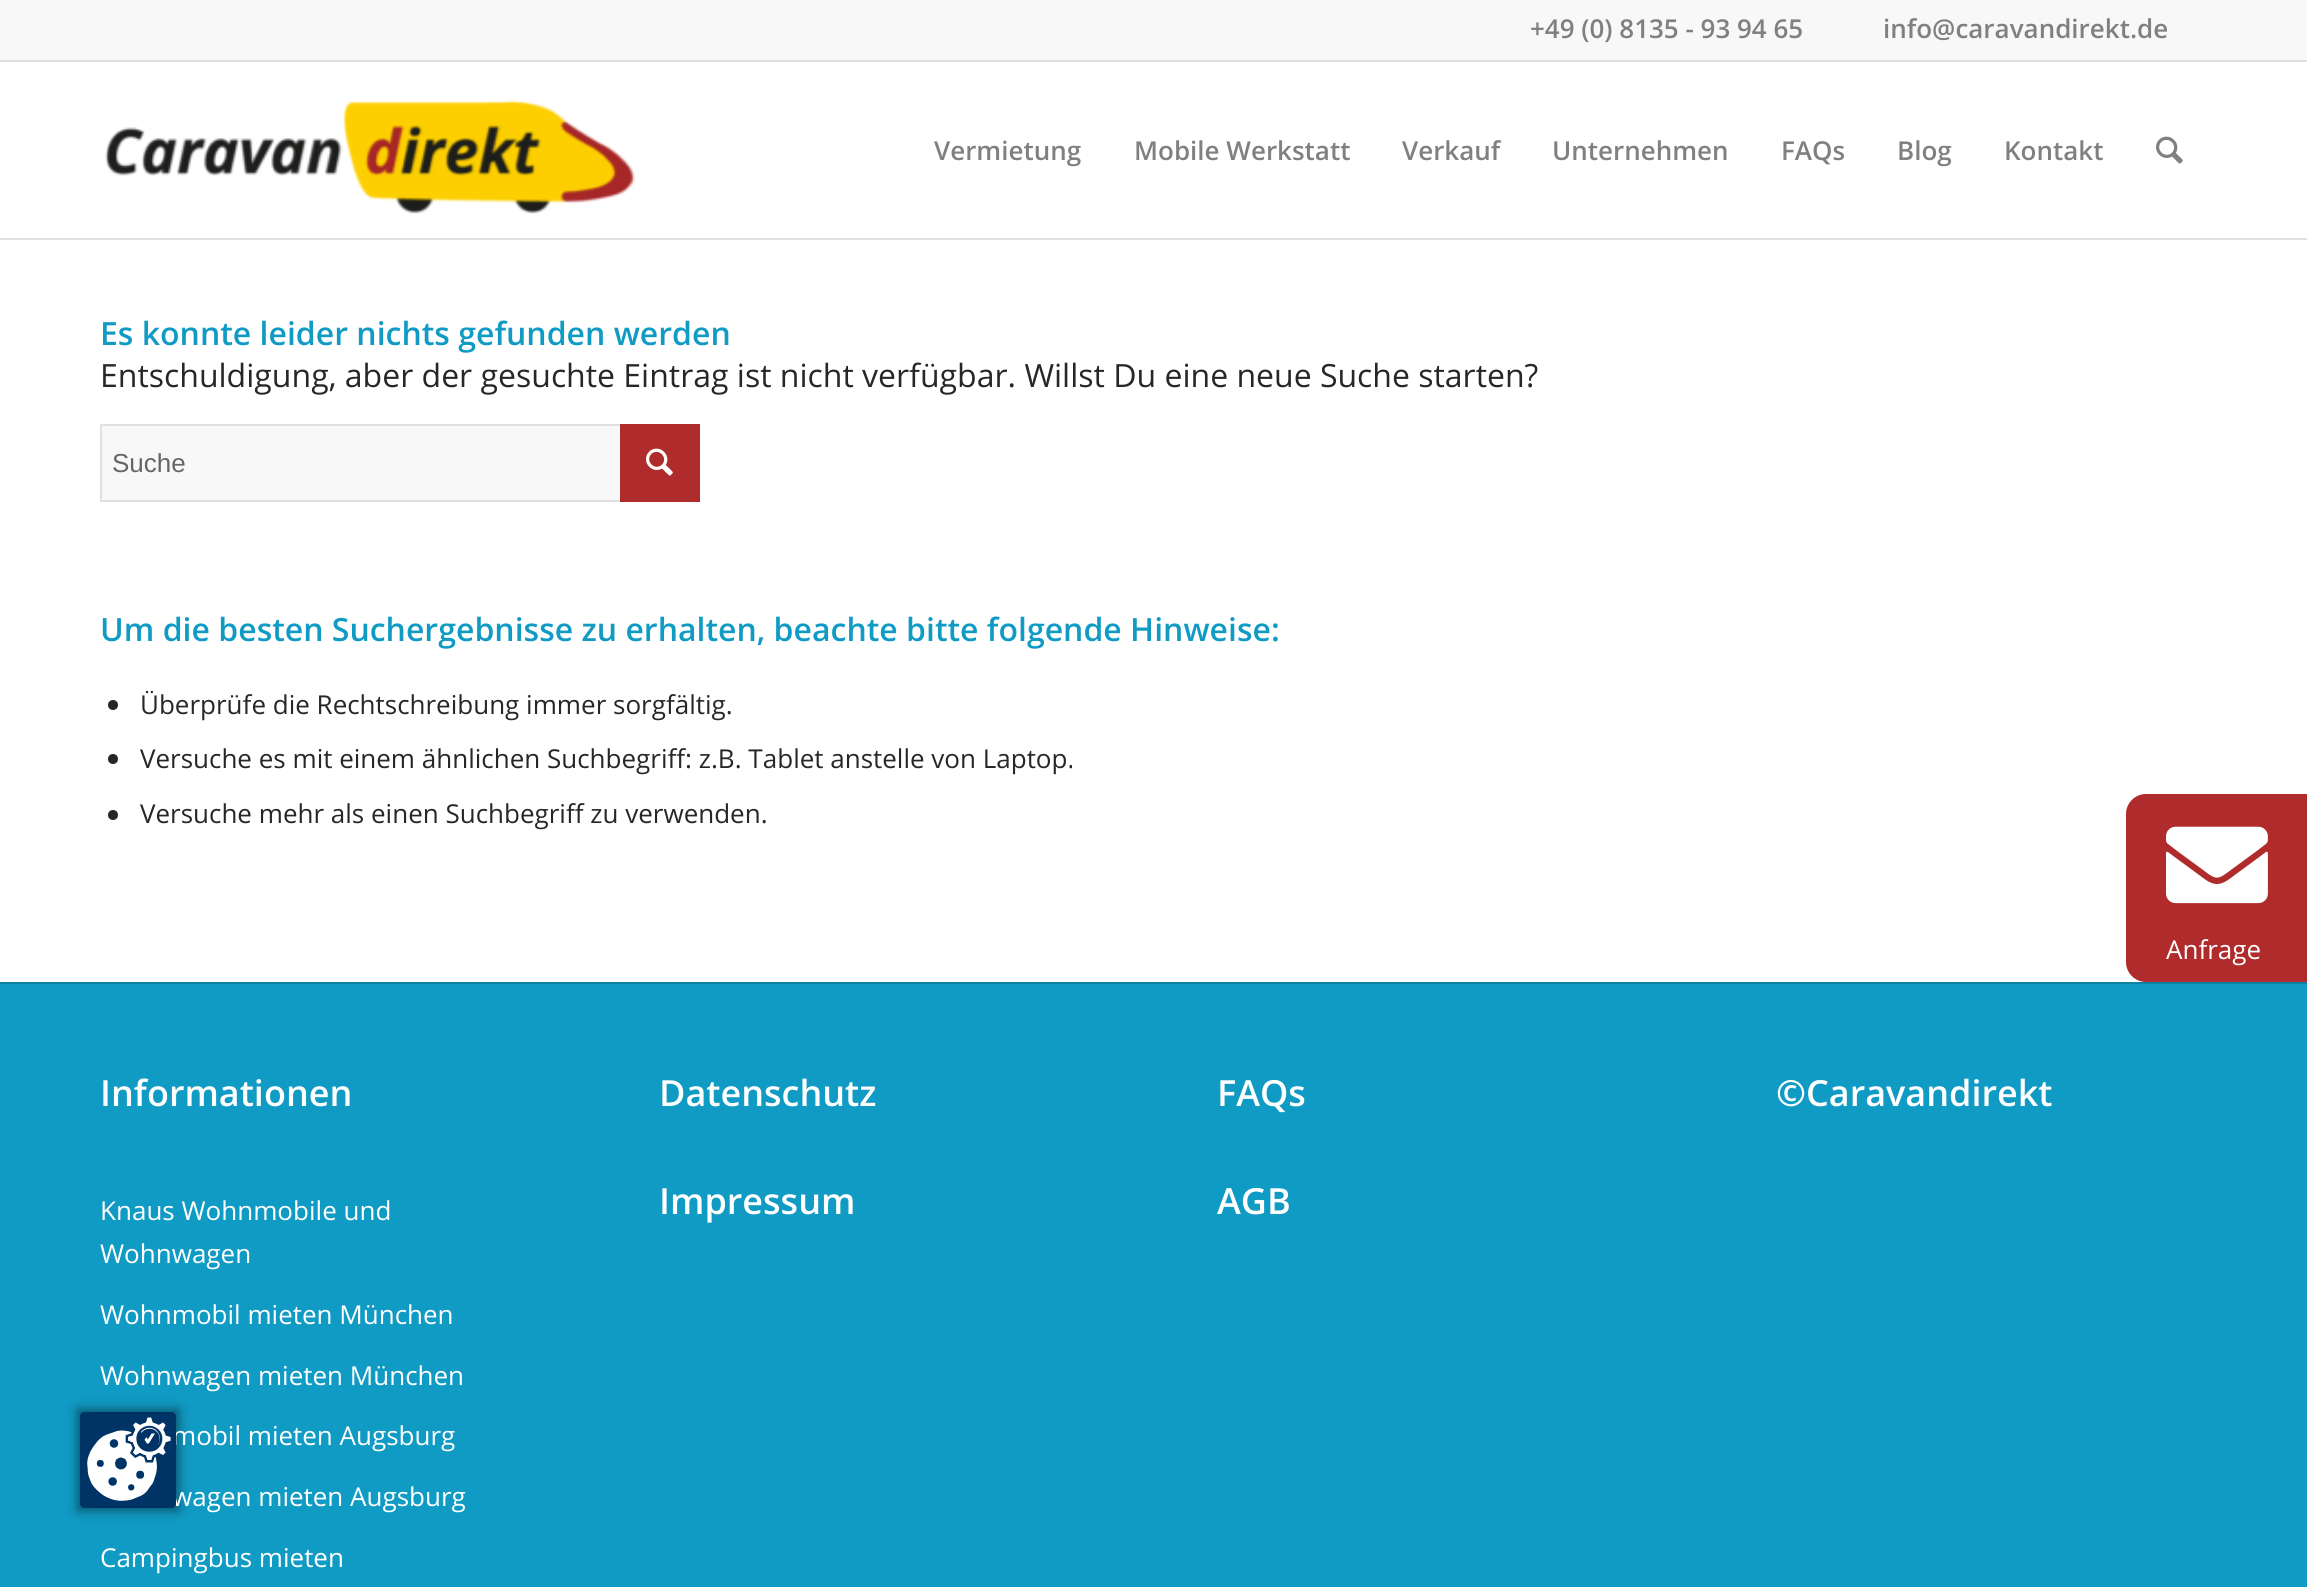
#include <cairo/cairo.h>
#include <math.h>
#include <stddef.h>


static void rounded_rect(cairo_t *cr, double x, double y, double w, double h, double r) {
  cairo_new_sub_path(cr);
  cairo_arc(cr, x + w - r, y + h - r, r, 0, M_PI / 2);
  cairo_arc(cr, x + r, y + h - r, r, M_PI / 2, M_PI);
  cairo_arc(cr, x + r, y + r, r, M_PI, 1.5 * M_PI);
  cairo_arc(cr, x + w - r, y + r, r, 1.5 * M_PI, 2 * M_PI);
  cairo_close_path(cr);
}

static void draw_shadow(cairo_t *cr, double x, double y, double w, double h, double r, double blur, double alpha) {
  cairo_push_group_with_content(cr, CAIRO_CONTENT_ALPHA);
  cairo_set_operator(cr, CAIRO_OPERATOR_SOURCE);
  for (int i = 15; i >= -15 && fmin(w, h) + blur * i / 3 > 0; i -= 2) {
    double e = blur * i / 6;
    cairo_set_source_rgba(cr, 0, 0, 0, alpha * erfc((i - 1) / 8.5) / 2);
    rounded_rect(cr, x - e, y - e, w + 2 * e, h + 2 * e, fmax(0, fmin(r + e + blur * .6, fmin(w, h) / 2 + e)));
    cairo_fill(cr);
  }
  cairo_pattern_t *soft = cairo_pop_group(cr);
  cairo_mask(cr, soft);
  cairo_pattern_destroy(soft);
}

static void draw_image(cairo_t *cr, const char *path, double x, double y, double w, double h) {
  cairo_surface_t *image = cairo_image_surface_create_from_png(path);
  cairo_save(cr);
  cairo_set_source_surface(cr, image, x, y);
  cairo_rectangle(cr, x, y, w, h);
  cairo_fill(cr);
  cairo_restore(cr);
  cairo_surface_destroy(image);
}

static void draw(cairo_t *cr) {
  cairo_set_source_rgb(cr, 1, 1, 1);
  cairo_paint(cr);
  cairo_set_source_rgb(cr, 248 / 255.0, 248 / 255.0, 248 / 255.0);
  cairo_rectangle(cr, 0, 0, 2307, 60);
  cairo_fill(cr);
  cairo_set_source_rgb(cr, 225 / 255.0, 225 / 255.0, 225 / 255.0);
  cairo_rectangle(cr, 0, 60, 2307, 2);
  cairo_fill(cr);
  cairo_rectangle(cr, 0, 238, 2307, 2);
  cairo_fill(cr);
  draw_image(cr, "images/1.png", 105, 100, 530, 114);
  draw_image(cr, "images/2.png", 2156, 136, 27, 28);
  cairo_set_source_rgb(cr, 248 / 255.0, 248 / 255.0, 248 / 255.0);
  cairo_rectangle(cr, 102, 426, 518, 74);
  cairo_fill(cr);
  cairo_rectangle(cr, 101, 425, 598, 76);
  cairo_set_source_rgb(cr, 225 / 255.0, 225 / 255.0, 225 / 255.0);
  cairo_stroke(cr);
  cairo_set_source_rgb(cr, 176 / 255.0, 43 / 255.0, 44 / 255.0);
  cairo_rectangle(cr, 620, 424, 80, 78);
  cairo_fill(cr);
  draw_image(cr, "images/3.png", 646, 448, 27, 28);
  cairo_set_source_rgb(cr, 39 / 255.0, 39 / 255.0, 39 / 255.0);
  cairo_arc(cr, 113, 705, 5, 0, 2 * M_PI);
  cairo_fill(cr);
  cairo_arc(cr, 113, 759, 5, 0, 2 * M_PI);
  cairo_fill(cr);
  cairo_arc(cr, 113, 815, 5, 0, 2 * M_PI);
  cairo_fill(cr);
  cairo_set_source_rgb(cr, 16 / 255.0, 155 / 255.0, 197 / 255.0);
  cairo_rectangle(cr, 0, 984, 2307, 603);
  cairo_fill(cr);
  cairo_set_source_rgb(cr, 15 / 255.0, 129 / 255.0, 161 / 255.0);
  cairo_rectangle(cr, 0, 982, 2307, 2);
  cairo_fill(cr);
  cairo_set_source_rgb(cr, 176 / 255.0, 43 / 255.0, 44 / 255.0);
  cairo_new_path(cr);
  cairo_move_to(cr, 2146, 794);
  cairo_line_to(cr, 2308, 794);
  cairo_line_to(cr, 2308, 982);
  cairo_line_to(cr, 2146, 982);
  cairo_curve_to(cr, 2135, 982, 2126, 973, 2126, 962);
  cairo_line_to(cr, 2126, 814);
  cairo_curve_to(cr, 2126, 803, 2135, 794, 2146, 794);
  cairo_close_path(cr);
  cairo_fill(cr);
  draw_image(cr, "images/4.png", 2166, 826, 102, 78);
  cairo_set_source_rgb(cr, 0, 0, 0);
  draw_shadow(cr, 78, 1410, 100, 100, 0, 6, 0.5);
  cairo_select_font_face(cr, "Open Sans SemiBold", CAIRO_FONT_SLANT_NORMAL, CAIRO_FONT_WEIGHT_NORMAL);
  cairo_set_font_size(cr, 26);
  cairo_set_source_rgb(cr, 128 / 255.0, 128 / 255.0, 128 / 255.0);
  cairo_move_to(cr, 1530, 38);
  cairo_show_text(cr, "+49 (0) 8135 - 93 94 65");
  cairo_move_to(cr, 1883, 38);
  cairo_show_text(cr, "info@caravandirekt.de");
  cairo_move_to(cr, 934, 160);
  cairo_show_text(cr, "Vermietung");
  cairo_move_to(cr, 1134, 160);
  cairo_show_text(cr, "Mobile Werkstatt");
  cairo_move_to(cr, 1402, 160);
  cairo_show_text(cr, "Verkauf");
  cairo_move_to(cr, 1552, 160);
  cairo_show_text(cr, "Unternehmen");
  cairo_move_to(cr, 1781, 160);
  cairo_show_text(cr, "FAQs");
  cairo_move_to(cr, 1897, 160);
  cairo_show_text(cr, "Blog");
  cairo_move_to(cr, 2004, 160);
  cairo_show_text(cr, "Kontakt");
  cairo_set_font_size(cr, 32);
  cairo_set_source_rgb(cr, 16 / 255.0, 155 / 255.0, 197 / 255.0);
  cairo_move_to(cr, 100, 345);
  cairo_show_text(cr, "Es konnte leider nichts gefunden werden");
  cairo_select_font_face(cr, "Open Sans", CAIRO_FONT_SLANT_NORMAL, CAIRO_FONT_WEIGHT_NORMAL);
  cairo_set_source_rgb(cr, 39 / 255.0, 39 / 255.0, 39 / 255.0);
  cairo_move_to(cr, 100, 387);
  cairo_show_text(cr, "Entschuldigung, aber der gesuchte Eintrag ist nicht verfügbar. Willst Du eine neue Suche starten?");
  cairo_select_font_face(cr, "Liberation Sans", CAIRO_FONT_SLANT_NORMAL, CAIRO_FONT_WEIGHT_NORMAL);
  cairo_set_font_size(cr, 26);
  cairo_set_source_rgb(cr, 102 / 255.0, 102 / 255.0, 102 / 255.0);
  cairo_move_to(cr, 112, 472);
  cairo_show_text(cr, "Suche");
  cairo_select_font_face(cr, "Open Sans SemiBold", CAIRO_FONT_SLANT_NORMAL, CAIRO_FONT_WEIGHT_NORMAL);
  cairo_set_font_size(cr, 32);
  cairo_set_source_rgb(cr, 16 / 255.0, 155 / 255.0, 197 / 255.0);
  cairo_move_to(cr, 100, 641);
  cairo_show_text(cr, "Um die besten Suchergebnisse zu erhalten, beachte bitte folgende Hinweise:");
  cairo_select_font_face(cr, "Open Sans", CAIRO_FONT_SLANT_NORMAL, CAIRO_FONT_WEIGHT_NORMAL);
  cairo_set_font_size(cr, 26);
  cairo_set_source_rgb(cr, 39 / 255.0, 39 / 255.0, 39 / 255.0);
  cairo_move_to(cr, 140, 714);
  cairo_show_text(cr, "Überprüfe die Rechtschreibung immer sorgfältig.");
  cairo_move_to(cr, 140, 768);
  cairo_show_text(cr, "Versuche es mit einem ähnlichen Suchbegriff: z.B. Tablet anstelle von Laptop.");
  cairo_move_to(cr, 140, 823);
  cairo_show_text(cr, "Versuche mehr als einen Suchbegriff zu verwenden.");
  cairo_set_source_rgb(cr, 1, 1, 1);
  cairo_move_to(cr, 2166, 959);
  cairo_show_text(cr, "Anfrage");
  cairo_select_font_face(cr, "Open Sans SemiBold", CAIRO_FONT_SLANT_NORMAL, CAIRO_FONT_WEIGHT_NORMAL);
  cairo_set_font_size(cr, 36);
  cairo_move_to(cr, 100, 1106);
  cairo_show_text(cr, "Informationen");
  cairo_select_font_face(cr, "Open Sans", CAIRO_FONT_SLANT_NORMAL, CAIRO_FONT_WEIGHT_NORMAL);
  cairo_set_font_size(cr, 26);
  cairo_move_to(cr, 100, 1220);
  cairo_show_text(cr, "Knaus Wohnmobile und");
  cairo_move_to(cr, 100, 1263);
  cairo_show_text(cr, "Wohnwagen");
  cairo_move_to(cr, 100, 1324);
  cairo_show_text(cr, "Wohnmobil mieten München");
  cairo_move_to(cr, 100, 1385);
  cairo_show_text(cr, "Wohnwagen mieten München");
  cairo_move_to(cr, 172, 1445);
  cairo_show_text(cr, "mobil mieten Augsburg");
  cairo_move_to(cr, 172, 1506);
  cairo_show_text(cr, "wagen mieten Augsburg");
  cairo_move_to(cr, 100, 1567);
  cairo_show_text(cr, "Campingbus mieten");
  cairo_select_font_face(cr, "Open Sans SemiBold", CAIRO_FONT_SLANT_NORMAL, CAIRO_FONT_WEIGHT_NORMAL);
  cairo_set_font_size(cr, 36);
  cairo_move_to(cr, 659, 1106);
  cairo_show_text(cr, "Datenschutz");
  cairo_move_to(cr, 659, 1214);
  cairo_show_text(cr, "Impressum");
  cairo_move_to(cr, 1217, 1106);
  cairo_show_text(cr, "FAQs");
  cairo_move_to(cr, 1217, 1214);
  cairo_show_text(cr, "AGB");
  cairo_move_to(cr, 1776, 1106);
  cairo_show_text(cr, "©Caravandirekt");
  draw_image(cr, "images/5.png", 80, 1412, 96, 96);
}

int main(void) {
  cairo_surface_t *surface = cairo_image_surface_create(CAIRO_FORMAT_RGB24, 2307, 1587);
  cairo_t *cr = cairo_create(surface);
  cairo_font_options_t *options = cairo_font_options_create();
  cairo_font_options_set_hint_metrics(options, CAIRO_HINT_METRICS_OFF);
  cairo_font_options_set_hint_style(options, CAIRO_HINT_STYLE_NONE);
  cairo_set_font_options(cr, options);
  cairo_set_miter_limit(cr, 4);
  draw(cr);
  cairo_surface_write_to_png(surface, "out.png");
  cairo_font_options_destroy(options);
  cairo_destroy(cr);
  cairo_surface_destroy(surface);
  return 0;
}
